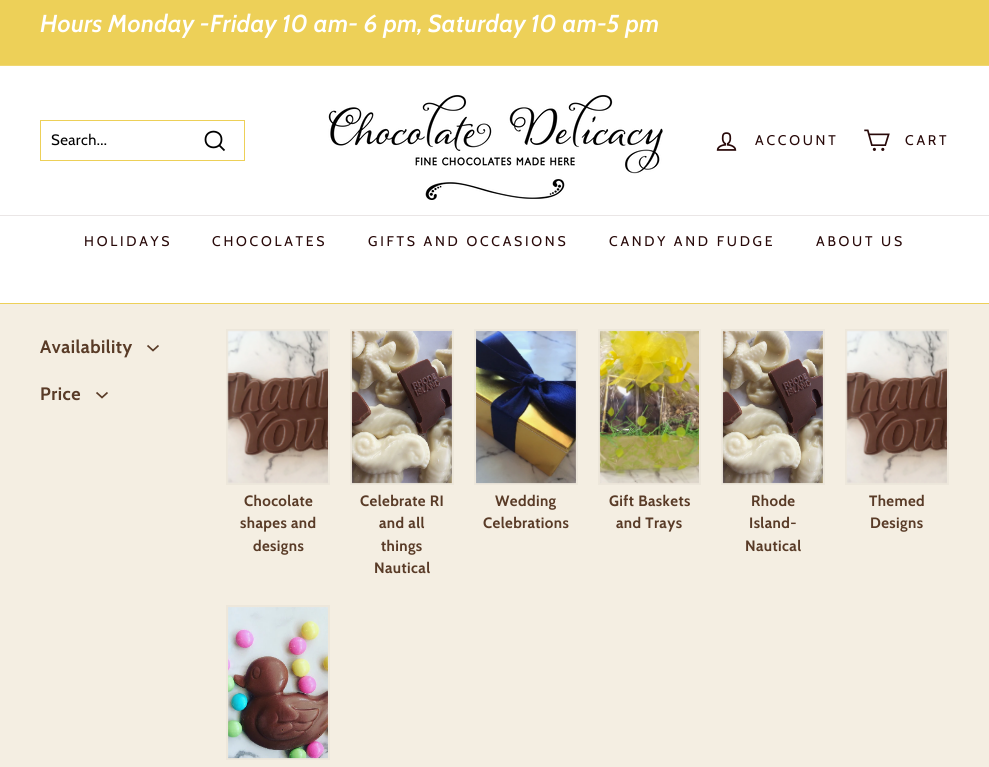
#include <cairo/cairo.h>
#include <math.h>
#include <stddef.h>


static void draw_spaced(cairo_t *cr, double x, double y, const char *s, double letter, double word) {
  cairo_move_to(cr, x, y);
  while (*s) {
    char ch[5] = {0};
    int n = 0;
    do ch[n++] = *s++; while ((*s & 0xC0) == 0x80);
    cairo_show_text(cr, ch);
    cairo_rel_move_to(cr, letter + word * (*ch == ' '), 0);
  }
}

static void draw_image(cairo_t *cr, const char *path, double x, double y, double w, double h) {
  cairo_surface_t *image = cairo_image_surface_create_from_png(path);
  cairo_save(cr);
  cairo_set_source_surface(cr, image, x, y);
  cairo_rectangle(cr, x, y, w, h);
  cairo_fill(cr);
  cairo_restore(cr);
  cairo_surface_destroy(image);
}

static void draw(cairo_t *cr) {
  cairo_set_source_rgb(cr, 244 / 255.0, 238 / 255.0, 226 / 255.0);
  cairo_paint(cr);
  cairo_set_source_rgb(cr, 237 / 255.0, 231 / 255.0, 219 / 255.0);
  cairo_rectangle(cr, 226, 605, 104, 155);
  cairo_fill(cr);
  cairo_rectangle(cr, 845, 329, 104, 156);
  cairo_fill(cr);
  cairo_rectangle(cr, 721, 329, 104, 156);
  cairo_fill(cr);
  cairo_rectangle(cr, 598, 329, 103, 156);
  cairo_fill(cr);
  cairo_rectangle(cr, 474, 329, 104, 156);
  cairo_fill(cr);
  cairo_rectangle(cr, 350, 329, 104, 156);
  cairo_fill(cr);
  cairo_rectangle(cr, 226, 329, 104, 156);
  cairo_fill(cr);
  cairo_set_source_rgb(cr, 237 / 255.0, 208 / 255.0, 88 / 255.0);
  cairo_rectangle(cr, 0, 0, 989, 65);
  cairo_fill(cr);
  cairo_set_source_rgb(cr, 240 / 255.0, 215 / 255.0, 113 / 255.0);
  cairo_rectangle(cr, 0, 65, 989, 1);
  cairo_fill(cr);
  cairo_set_source_rgb(cr, 1, 1, 1);
  cairo_rectangle(cr, 0, 66, 989, 149);
  cairo_fill(cr);
  cairo_rectangle(cr, 40.5, 120.5, 204, 40);
  cairo_set_source_rgb(cr, 237 / 255.0, 208 / 255.0, 88 / 255.0);
  cairo_set_line_width(cr, 1);
  cairo_stroke(cr);
  cairo_new_path(cr);
  cairo_move_to(cr, 221.5, 139.5);
  cairo_curve_to(cr, 221.5, 150, 205.5, 150, 205.5, 139.5);
  cairo_curve_to(cr, 205.5, 129, 221.5, 129, 221.5, 139.5);
  cairo_close_path(cr);
  cairo_move_to(cr, 224.5, 150.5);
  cairo_line_to(cr, 219.5, 145.5);
  cairo_set_source_rgb(cr, 0, 0, 0);
  cairo_set_line_width(cr, 1.8);
  cairo_stroke(cr);
  draw_image(cr, "images/1.png", 328, 95, 335, 105);
  draw_image(cr, "images/2.png", 716, 132, 21, 19);
  draw_image(cr, "images/3.png", 864, 129, 26, 22);
  cairo_set_source_rgb(cr, 234 / 255.0, 230 / 255.0, 230 / 255.0);
  cairo_rectangle(cr, 0, 215, 989, 1);
  cairo_fill(cr);
  cairo_set_source_rgb(cr, 1, 1, 1);
  cairo_rectangle(cr, 0, 216, 989, 87);
  cairo_fill(cr);
  cairo_set_source_rgb(cr, 237 / 255.0, 208 / 255.0, 88 / 255.0);
  cairo_rectangle(cr, 0, 303, 989, 1);
  cairo_fill(cr);
  cairo_new_path(cr);
  cairo_move_to(cr, 147.5, 345.5);
  cairo_line_to(cr, 153, 350.5);
  cairo_line_to(cr, 158.5, 345.5);
  cairo_set_source_rgb(cr, 89 / 255.0, 59 / 255.0, 39 / 255.0);
  cairo_set_line_width(cr, 1.7);
  cairo_stroke(cr);
  cairo_new_path(cr);
  cairo_move_to(cr, 96.5, 392.5);
  cairo_line_to(cr, 102, 397.5);
  cairo_line_to(cr, 107.5, 392.5);
  cairo_stroke(cr);
  draw_image(cr, "images/4.png", 227, 330, 101, 154);
  draw_image(cr, "images/5.png", 351, 330, 101, 154);
  draw_image(cr, "images/6.png", 476, 331, 100, 153);
  draw_image(cr, "images/7.png", 599, 330, 100, 154);
  draw_image(cr, "images/5.png", 722, 330, 101, 154);
  draw_image(cr, "images/4.png", 846, 330, 101, 154);
  draw_image(cr, "images/8.png", 228, 607, 100, 152);
  cairo_select_font_face(cr, "Cabin SemiBold", CAIRO_FONT_SLANT_ITALIC, CAIRO_FONT_WEIGHT_NORMAL);
  cairo_set_font_size(cr, 24.5);
  cairo_set_source_rgb(cr, 1, 1, 1);
  draw_spaced(cr, 40, 32, "Hours Monday -Friday 10 am- 6 pm, Saturday 10 am-5 pm", 0.25, 0);
  cairo_select_font_face(cr, "Cabin", CAIRO_FONT_SLANT_NORMAL, CAIRO_FONT_WEIGHT_NORMAL);
  cairo_set_font_size(cr, 15);
  cairo_set_source_rgb(cr, 0, 0, 0);
  draw_spaced(cr, 51, 145, "Search...", 0.4, 0);
  cairo_set_font_size(cr, 14);
  cairo_set_source_rgb(cr, 40 / 255.0, 9 / 255.0, 9 / 255.0);
  draw_spaced(cr, 755, 145, "ACCOUNT", 2.75, 0);
  draw_spaced(cr, 905, 145, "CART", 2.75, 0);
  draw_spaced(cr, 84, 246, "HOLIDAYS", 2.75, 0);
  draw_spaced(cr, 212, 246, "CHOCOLATES", 2.75, 0);
  draw_spaced(cr, 368, 246, "GIFTS AND OCCASIONS", 2.75, 0);
  draw_spaced(cr, 609, 246, "CANDY AND FUDGE", 2.75, 0);
  draw_spaced(cr, 816, 246, "ABOUT US", 2.75, 0);
  cairo_select_font_face(cr, "Cabin", CAIRO_FONT_SLANT_NORMAL, CAIRO_FONT_WEIGHT_BOLD);
  cairo_set_font_size(cr, 18);
  cairo_set_source_rgb(cr, 89 / 255.0, 59 / 255.0, 39 / 255.0);
  draw_spaced(cr, 40, 353, "Availability", 0.5, 0);
  draw_spaced(cr, 40, 400, "Price", 0.5, 0);
  cairo_set_font_size(cr, 15);
  draw_spaced(cr, 244, 506, "Chocolate", 0.4, 0);
  draw_spaced(cr, 240, 528, "shapes and", 0.4, 0);
  draw_spaced(cr, 253, 551, "designs", 0.4, 0);
  draw_spaced(cr, 360, 506, "Celebrate RI", 0.4, 0);
  draw_spaced(cr, 379, 528, "and all", 0.4, 0);
  draw_spaced(cr, 381, 551, "things", 0.4, 0);
  draw_spaced(cr, 374, 573, "Nautical", 0.4, 0);
  draw_spaced(cr, 495, 506, "Wedding", 0.4, 0);
  draw_spaced(cr, 483, 528, "Celebrations", 0.4, 0);
  draw_spaced(cr, 609, 506, "Gift Baskets", 0.4, 0);
  draw_spaced(cr, 616, 528, "and Trays", 0.4, 0);
  draw_spaced(cr, 751, 506, "Rhode", 0.4, 0);
  draw_spaced(cr, 749, 528, "Island-", 0.4, 0);
  draw_spaced(cr, 745, 551, "Nautical", 0.4, 0);
  draw_spaced(cr, 869, 506, "Themed", 0.4, 0);
  draw_spaced(cr, 870, 528, "Designs", 0.4, 0);
}

int main(void) {
  cairo_surface_t *surface = cairo_image_surface_create(CAIRO_FORMAT_RGB24, 989, 767);
  cairo_t *cr = cairo_create(surface);
  cairo_font_options_t *options = cairo_font_options_create();
  cairo_font_options_set_hint_metrics(options, CAIRO_HINT_METRICS_OFF);
  cairo_font_options_set_hint_style(options, CAIRO_HINT_STYLE_NONE);
  cairo_set_font_options(cr, options);
  cairo_set_miter_limit(cr, 4);
  draw(cr);
  cairo_surface_write_to_png(surface, "out.png");
  cairo_font_options_destroy(options);
  cairo_destroy(cr);
  cairo_surface_destroy(surface);
  return 0;
}
